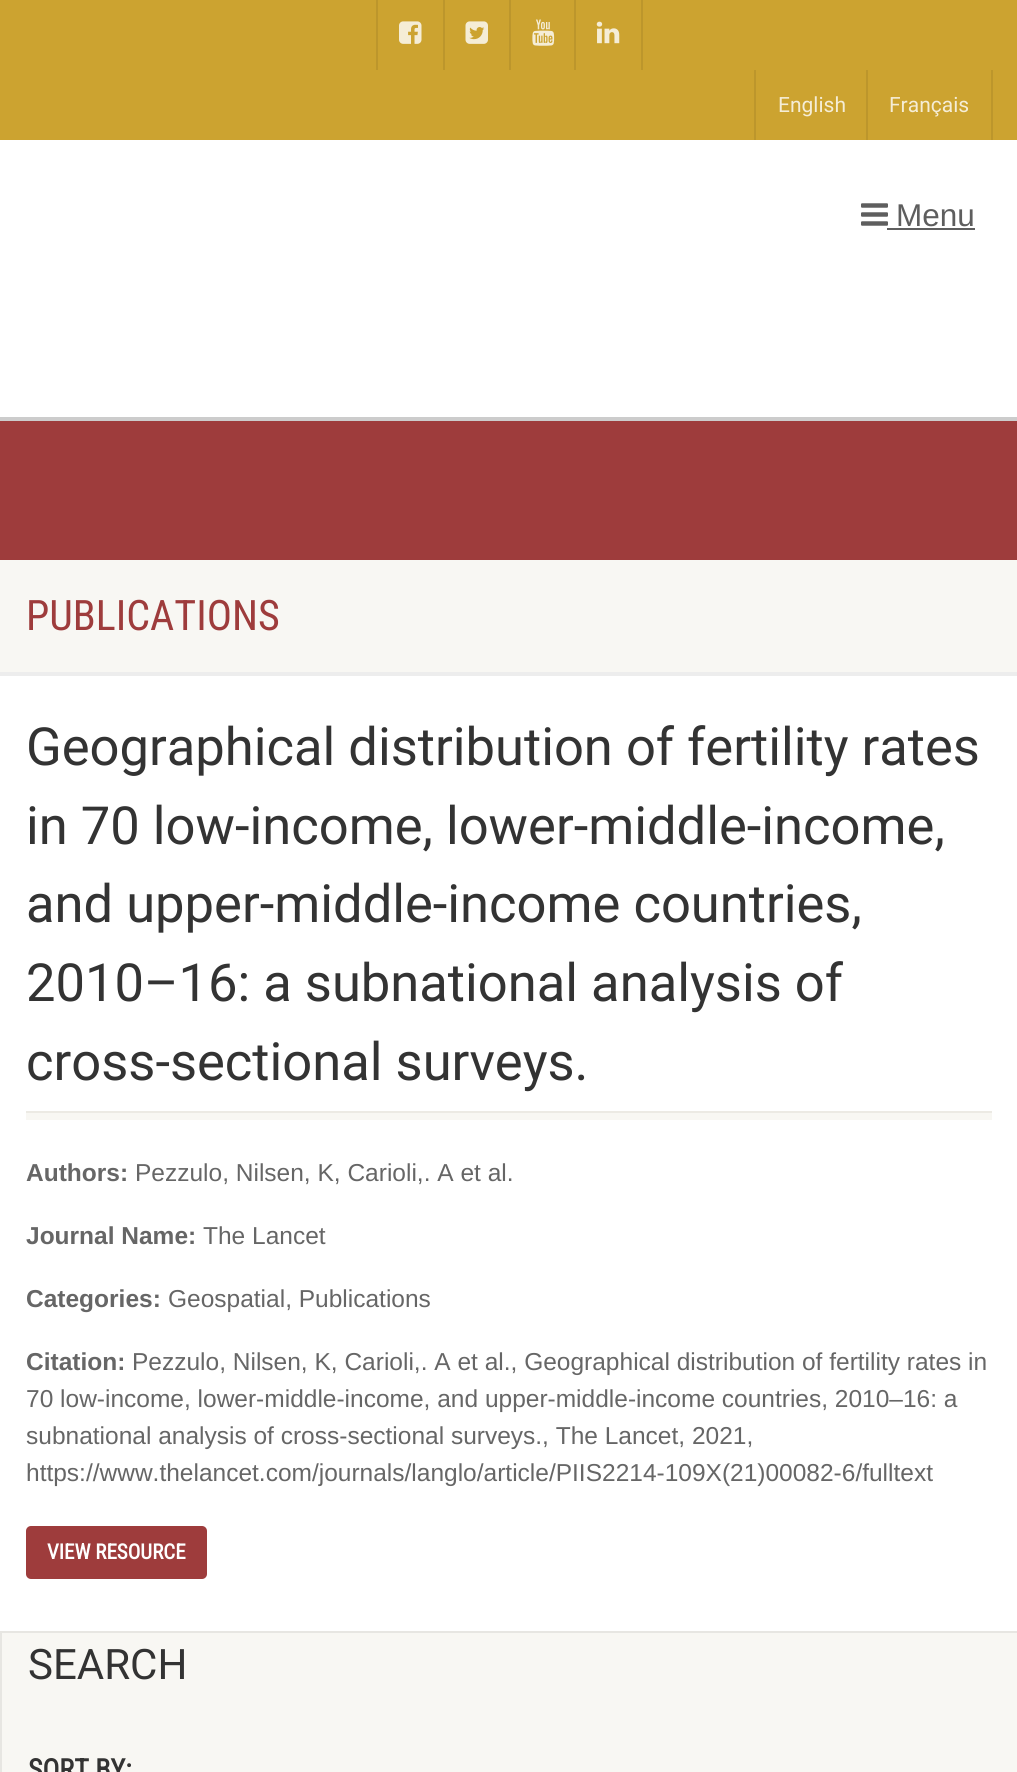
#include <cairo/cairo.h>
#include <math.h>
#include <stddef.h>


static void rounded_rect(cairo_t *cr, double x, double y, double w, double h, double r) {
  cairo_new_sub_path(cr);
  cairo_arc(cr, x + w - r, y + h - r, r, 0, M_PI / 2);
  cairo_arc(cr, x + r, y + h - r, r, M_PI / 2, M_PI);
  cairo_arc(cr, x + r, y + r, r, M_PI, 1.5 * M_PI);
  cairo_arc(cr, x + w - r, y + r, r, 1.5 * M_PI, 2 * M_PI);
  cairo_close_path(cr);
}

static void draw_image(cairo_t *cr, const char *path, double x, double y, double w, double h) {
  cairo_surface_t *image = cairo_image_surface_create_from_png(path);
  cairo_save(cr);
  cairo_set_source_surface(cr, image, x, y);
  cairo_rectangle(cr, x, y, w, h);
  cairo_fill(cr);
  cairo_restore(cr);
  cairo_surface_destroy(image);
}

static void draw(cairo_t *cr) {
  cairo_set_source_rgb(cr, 1, 1, 1);
  cairo_paint(cr);
  cairo_set_source_rgb(cr, 204 / 255.0, 163 / 255.0, 48 / 255.0);
  cairo_rectangle(cr, 0, 0, 1017, 140);
  cairo_fill(cr);
  cairo_set_source_rgb(cr, 188 / 255.0, 150 / 255.0, 44 / 255.0);
  cairo_rectangle(cr, 443, 0, 2, 70);
  cairo_fill(cr);
  cairo_rectangle(cr, 376, 0, 2, 70);
  cairo_fill(cr);
  draw_image(cr, "images/1.png", 399, 21, 23, 23);
  cairo_rectangle(cr, 509, 0, 2, 70);
  cairo_fill(cr);
  draw_image(cr, "images/2.png", 465, 21, 23, 23);
  cairo_rectangle(cr, 574, 0, 2, 70);
  cairo_fill(cr);
  draw_image(cr, "images/3.png", 532, 19, 23, 27);
  cairo_rectangle(cr, 641, 0, 2, 70);
  cairo_fill(cr);
  draw_image(cr, "images/4.png", 596, 21, 24, 23);
  cairo_rectangle(cr, 866, 70, 2, 70);
  cairo_fill(cr);
  cairo_rectangle(cr, 754, 70, 2, 70);
  cairo_fill(cr);
  cairo_rectangle(cr, 991, 70, 2, 70);
  cairo_fill(cr);
  cairo_set_source_rgb(cr, 204 / 255.0, 204 / 255.0, 204 / 255.0);
  cairo_rectangle(cr, 0, 417, 1017, 4);
  cairo_fill(cr);
  draw_image(cr, "images/5.png", 861, 203, 27, 23);
  cairo_set_source_rgb(cr, 94 / 255.0, 94 / 255.0, 94 / 255.0);
  cairo_rectangle(cr, 887, 228, 88, 2);
  cairo_fill(cr);
  cairo_set_source_rgb(cr, 158 / 255.0, 60 / 255.0, 60 / 255.0);
  cairo_rectangle(cr, 0, 421, 1017, 139);
  cairo_fill(cr);
  cairo_set_source_rgb(cr, 237 / 255.0, 237 / 255.0, 237 / 255.0);
  cairo_new_path(cr);
  cairo_move_to(cr, 0, 672);
  cairo_line_to(cr, 0, 676);
  cairo_line_to(cr, 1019, 676);
  cairo_line_to(cr, 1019, 564);
  cairo_line_to(cr, 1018, 564);
  cairo_line_to(cr, 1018, 672);
  cairo_close_path(cr);
  cairo_fill(cr);
  cairo_set_source_rgb(cr, 248 / 255.0, 247 / 255.0, 243 / 255.0);
  cairo_rectangle(cr, 0, 560, 1017, 112);
  cairo_fill(cr);
  cairo_set_source_rgb(cr, 236 / 255.0, 234 / 255.0, 228 / 255.0);
  cairo_rectangle(cr, 26, 1111, 966, 2);
  cairo_fill(cr);
  cairo_set_source_rgb(cr, 248 / 255.0, 247 / 255.0, 243 / 255.0);
  cairo_rectangle(cr, 26, 1113, 966, 7);
  cairo_fill(cr);
  cairo_set_source_rgb(cr, 158 / 255.0, 60 / 255.0, 60 / 255.0);
  rounded_rect(cr, 26, 1526, 181, 53, 5);
  cairo_fill(cr);
  cairo_set_source_rgb(cr, 248 / 255.0, 247 / 255.0, 243 / 255.0);
  cairo_rectangle(cr, 1, 1632, 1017, 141);
  cairo_fill_preserve(cr);
  cairo_set_source_rgb(cr, 231 / 255.0, 230 / 255.0, 226 / 255.0);
  cairo_stroke(cr);
  cairo_select_font_face(cr, "Roboto", CAIRO_FONT_SLANT_NORMAL, CAIRO_FONT_WEIGHT_NORMAL);
  cairo_set_font_size(cr, 21);
  cairo_set_source_rgb(cr, 245 / 255.0, 237 / 255.0, 214 / 255.0);
  cairo_move_to(cr, 778, 112);
  cairo_show_text(cr, "English");
  cairo_move_to(cr, 889, 112);
  cairo_show_text(cr, "Français");
  cairo_select_font_face(cr, "Liberation Sans", CAIRO_FONT_SLANT_NORMAL, CAIRO_FONT_WEIGHT_NORMAL);
  cairo_set_font_size(cr, 31.5);
  cairo_set_source_rgb(cr, 94 / 255.0, 94 / 255.0, 94 / 255.0);
  cairo_move_to(cr, 896, 226);
  cairo_show_text(cr, "Menu");
  cairo_select_font_face(cr, "Roboto Condensed", CAIRO_FONT_SLANT_NORMAL, CAIRO_FONT_WEIGHT_NORMAL);
  cairo_set_font_size(cr, 42);
  cairo_set_source_rgb(cr, 158 / 255.0, 60 / 255.0, 60 / 255.0);
  cairo_move_to(cr, 26, 630);
  cairo_show_text(cr, "PUBLICATIONS");
  cairo_select_font_face(cr, "Roboto", CAIRO_FONT_SLANT_NORMAL, CAIRO_FONT_WEIGHT_NORMAL);
  cairo_set_font_size(cr, 52.5);
  cairo_set_source_rgb(cr, 51 / 255.0, 51 / 255.0, 51 / 255.0);
  cairo_move_to(cr, 26, 765);
  cairo_show_text(cr, "Geographical distribution of fertility rates");
  cairo_move_to(cr, 26, 844);
  cairo_show_text(cr, "in 70 low-income, lower-middle-income,");
  cairo_move_to(cr, 26, 922);
  cairo_show_text(cr, "and upper-middle-income countries,");
  cairo_move_to(cr, 26, 1001);
  cairo_show_text(cr, "2010–16: a subnational analysis of");
  cairo_move_to(cr, 26, 1080);
  cairo_show_text(cr, "cross-sectional surveys.");
  cairo_select_font_face(cr, "Liberation Sans", CAIRO_FONT_SLANT_NORMAL, CAIRO_FONT_WEIGHT_BOLD);
  cairo_set_font_size(cr, 24.5);
  cairo_set_source_rgb(cr, 102 / 255.0, 102 / 255.0, 102 / 255.0);
  cairo_move_to(cr, 26, 1181);
  cairo_show_text(cr, "Authors:");
  cairo_select_font_face(cr, "Liberation Sans", CAIRO_FONT_SLANT_NORMAL, CAIRO_FONT_WEIGHT_NORMAL);
  cairo_move_to(cr, 135, 1181);
  cairo_show_text(cr, "Pezzulo, Nilsen, K, Carioli,. A et al.");
  cairo_select_font_face(cr, "Liberation Sans", CAIRO_FONT_SLANT_NORMAL, CAIRO_FONT_WEIGHT_BOLD);
  cairo_move_to(cr, 26, 1244);
  cairo_show_text(cr, "Journal Name:");
  cairo_select_font_face(cr, "Liberation Sans", CAIRO_FONT_SLANT_NORMAL, CAIRO_FONT_WEIGHT_NORMAL);
  cairo_move_to(cr, 203, 1244);
  cairo_show_text(cr, "The Lancet");
  cairo_select_font_face(cr, "Liberation Sans", CAIRO_FONT_SLANT_NORMAL, CAIRO_FONT_WEIGHT_BOLD);
  cairo_move_to(cr, 26, 1307);
  cairo_show_text(cr, "Categories:");
  cairo_select_font_face(cr, "Liberation Sans", CAIRO_FONT_SLANT_NORMAL, CAIRO_FONT_WEIGHT_NORMAL);
  cairo_move_to(cr, 168, 1307);
  cairo_show_text(cr, "Geospatial, Publications");
  cairo_select_font_face(cr, "Liberation Sans", CAIRO_FONT_SLANT_NORMAL, CAIRO_FONT_WEIGHT_BOLD);
  cairo_move_to(cr, 26, 1370);
  cairo_show_text(cr, "Citation:");
  cairo_select_font_face(cr, "Liberation Sans", CAIRO_FONT_SLANT_NORMAL, CAIRO_FONT_WEIGHT_NORMAL);
  cairo_move_to(cr, 132, 1370);
  cairo_show_text(cr, "Pezzulo, Nilsen, K, Carioli,. A et al., Geographical distribution of fertility rates in");
  cairo_move_to(cr, 26, 1407);
  cairo_show_text(cr, "70 low-income, lower-middle-income, and upper-middle-income countries, 2010–16: a");
  cairo_move_to(cr, 26, 1444);
  cairo_show_text(cr, "subnational analysis of cross-sectional surveys., The Lancet, 2021,");
  cairo_move_to(cr, 26, 1481);
  cairo_show_text(cr, "https://www.thelancet.com/journals/langlo/article/PIIS2214-109X(21)00082-6/fulltext");
  cairo_select_font_face(cr, "Roboto Condensed", CAIRO_FONT_SLANT_NORMAL, CAIRO_FONT_WEIGHT_BOLD);
  cairo_set_font_size(cr, 21);
  cairo_set_source_rgb(cr, 1, 1, 1);
  cairo_move_to(cr, 47, 1559);
  cairo_show_text(cr, "VIEW RESOURCE");
  cairo_select_font_face(cr, "Roboto", CAIRO_FONT_SLANT_NORMAL, CAIRO_FONT_WEIGHT_NORMAL);
  cairo_set_font_size(cr, 42);
  cairo_set_source_rgb(cr, 51 / 255.0, 51 / 255.0, 51 / 255.0);
  cairo_move_to(cr, 28, 1679);
  cairo_show_text(cr, "SEARCH");
  cairo_select_font_face(cr, "Roboto Condensed", CAIRO_FONT_SLANT_NORMAL, CAIRO_FONT_WEIGHT_BOLD);
  cairo_set_font_size(cr, 28);
  cairo_move_to(cr, 28, 1779);
  cairo_show_text(cr, "SORT BY:");
}

int main(void) {
  cairo_surface_t *surface = cairo_image_surface_create(CAIRO_FORMAT_RGB24, 1017, 1772);
  cairo_t *cr = cairo_create(surface);
  cairo_font_options_t *options = cairo_font_options_create();
  cairo_font_options_set_hint_metrics(options, CAIRO_HINT_METRICS_OFF);
  cairo_font_options_set_hint_style(options, CAIRO_HINT_STYLE_NONE);
  cairo_set_font_options(cr, options);
  cairo_set_miter_limit(cr, 4);
  draw(cr);
  cairo_surface_write_to_png(surface, "out.png");
  cairo_font_options_destroy(options);
  cairo_destroy(cr);
  cairo_surface_destroy(surface);
  return 0;
}
